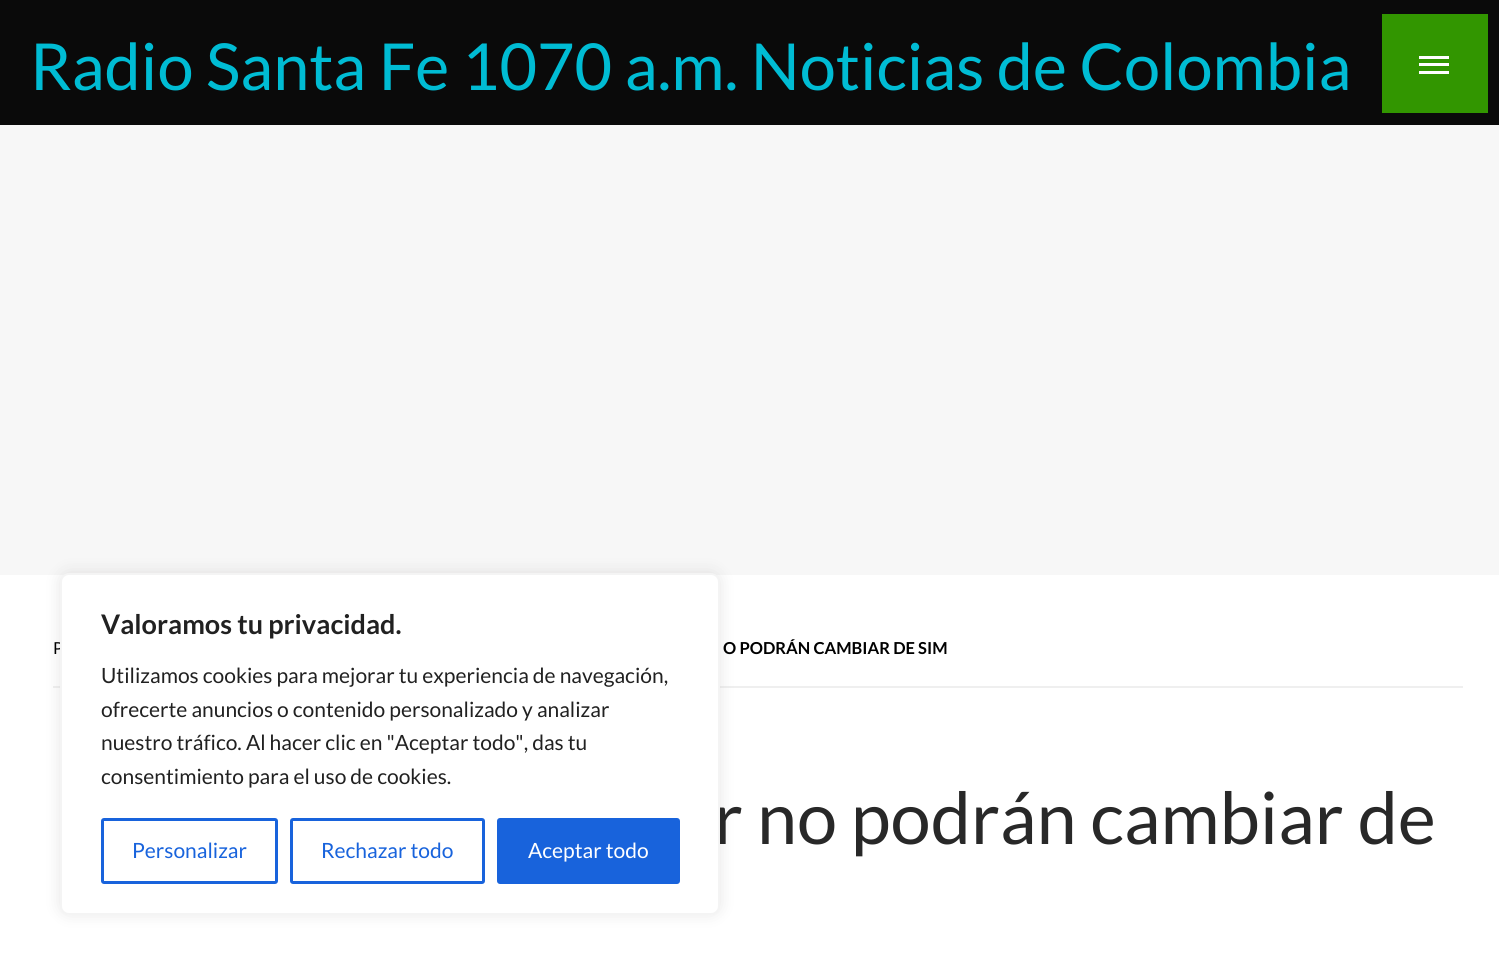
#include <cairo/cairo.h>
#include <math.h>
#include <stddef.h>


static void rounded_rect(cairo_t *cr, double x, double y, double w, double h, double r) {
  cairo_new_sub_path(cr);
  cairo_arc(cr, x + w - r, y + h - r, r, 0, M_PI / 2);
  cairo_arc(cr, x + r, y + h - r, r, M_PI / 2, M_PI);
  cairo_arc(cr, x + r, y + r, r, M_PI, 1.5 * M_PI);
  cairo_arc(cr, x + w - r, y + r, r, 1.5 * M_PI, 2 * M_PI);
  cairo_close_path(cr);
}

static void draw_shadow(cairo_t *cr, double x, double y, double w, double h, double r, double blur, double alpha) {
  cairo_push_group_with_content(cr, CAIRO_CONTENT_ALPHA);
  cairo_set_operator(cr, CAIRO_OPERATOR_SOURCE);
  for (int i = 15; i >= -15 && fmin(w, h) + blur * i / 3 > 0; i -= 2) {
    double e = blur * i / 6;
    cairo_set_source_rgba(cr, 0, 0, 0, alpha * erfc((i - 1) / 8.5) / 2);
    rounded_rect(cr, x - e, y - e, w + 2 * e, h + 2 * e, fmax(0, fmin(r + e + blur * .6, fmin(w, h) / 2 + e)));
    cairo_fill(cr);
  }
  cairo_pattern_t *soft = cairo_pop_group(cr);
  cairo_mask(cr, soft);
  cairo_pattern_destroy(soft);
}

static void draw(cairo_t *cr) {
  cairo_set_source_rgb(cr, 247 / 255.0, 247 / 255.0, 247 / 255.0);
  cairo_paint(cr);
  cairo_set_source_rgb(cr, 10 / 255.0, 10 / 255.0, 10 / 255.0);
  cairo_rectangle(cr, 0, 0, 1499, 125);
  cairo_fill(cr);
  cairo_set_source_rgb(cr, 50 / 255.0, 150 / 255.0, 0);
  cairo_rectangle(cr, 1382, 14, 106, 99);
  cairo_fill(cr);
  cairo_set_source_rgb(cr, 1, 1, 1);
  cairo_rectangle(cr, 1419, 56, 30, 3);
  cairo_fill(cr);
  cairo_rectangle(cr, 1419, 63, 30, 3);
  cairo_fill(cr);
  cairo_rectangle(cr, 1419, 71, 30, 3);
  cairo_fill(cr);
  cairo_rectangle(cr, 0, 575, 1499, 399);
  cairo_fill(cr);
  cairo_set_source_rgb(cr, 239 / 255.0, 239 / 255.0, 239 / 255.0);
  cairo_rectangle(cr, 53, 686, 1410, 2);
  cairo_fill(cr);
  cairo_set_source_rgb(cr, 172 / 255.0, 171 / 255.0, 171 / 255.0);
  draw_shadow(cr, 60, 572, 660, 342, 9, 7.5, 0.3);
  cairo_select_font_face(cr, "Lato", CAIRO_FONT_SLANT_NORMAL, CAIRO_FONT_WEIGHT_NORMAL);
  cairo_set_font_size(cr, 64.8);
  cairo_set_source_rgb(cr, 0, 188 / 255.0, 212 / 255.0);
  cairo_move_to(cr, 30, 90);
  cairo_show_text(cr, "Radio Santa Fe 1070 a.m. Noticias de Colombia");
  cairo_set_font_size(cr, 16.5);
  cairo_set_source_rgb(cr, 0, 0, 0);
  cairo_move_to(cr, 53, 654);
  cairo_show_text(cr, "P");
  cairo_select_font_face(cr, "Lato", CAIRO_FONT_SLANT_NORMAL, CAIRO_FONT_WEIGHT_BOLD);
  cairo_move_to(cr, 723, 654);
  cairo_show_text(cr, "O PODRÁN CAMBIAR DE SIM");
  cairo_select_font_face(cr, "Lato", CAIRO_FONT_SLANT_NORMAL, CAIRO_FONT_WEIGHT_NORMAL);
  cairo_set_font_size(cr, 72);
  cairo_set_source_rgb(cr, 40 / 255.0, 40 / 255.0, 40 / 255.0);
  cairo_move_to(cr, 714, 844);
  cairo_show_text(cr, "r no podrán cambiar de");
  cairo_set_source_rgb(cr, 1, 1, 1);
  rounded_rect(cr, 61, 574, 658, 340, 8);
  cairo_fill_preserve(cr);
  cairo_set_source_rgb(cr, 244 / 255.0, 244 / 255.0, 244 / 255.0);
  cairo_stroke(cr);
  cairo_select_font_face(cr, "Lato", CAIRO_FONT_SLANT_NORMAL, CAIRO_FONT_WEIGHT_BOLD);
  cairo_set_font_size(cr, 27);
  cairo_set_source_rgb(cr, 33 / 255.0, 33 / 255.0, 33 / 255.0);
  cairo_move_to(cr, 101, 634);
  cairo_show_text(cr, "Valoramos tu privacidad.");
  cairo_select_font_face(cr, "Lato", CAIRO_FONT_SLANT_NORMAL, CAIRO_FONT_WEIGHT_NORMAL);
  cairo_set_font_size(cr, 21);
  cairo_move_to(cr, 101, 683);
  cairo_show_text(cr, "Utilizamos cookies para mejorar tu experiencia de navegación,");
  cairo_move_to(cr, 101, 717);
  cairo_show_text(cr, "ofrecerte anuncios o contenido personalizado y analizar");
  cairo_move_to(cr, 101, 750);
  cairo_show_text(cr, "nuestro tráfico. Al hacer clic en \"Aceptar todo\", das tu");
  cairo_move_to(cr, 101, 784);
  cairo_show_text(cr, "consentimiento para el uso de cookies.");
  rounded_rect(cr, 102.5, 819.5, 174, 63, 1.5);
  cairo_set_source_rgb(cr, 24 / 255.0, 99 / 255.0, 220 / 255.0);
  cairo_set_line_width(cr, 3);
  cairo_stroke(cr);
  cairo_move_to(cr, 132, 858);
  cairo_show_text(cr, "Personalizar");
  rounded_rect(cr, 291.5, 819.5, 192, 63, 1.5);
  cairo_stroke(cr);
  cairo_move_to(cr, 321, 858);
  cairo_show_text(cr, "Rechazar todo");
  rounded_rect(cr, 498.5, 819.5, 180, 63, 1.5);
  cairo_fill_preserve(cr);
  cairo_stroke(cr);
  cairo_set_source_rgb(cr, 1, 1, 1);
  cairo_move_to(cr, 528, 858);
  cairo_show_text(cr, "Aceptar todo");
}

int main(void) {
  cairo_surface_t *surface = cairo_image_surface_create(CAIRO_FORMAT_RGB24, 1499, 974);
  cairo_t *cr = cairo_create(surface);
  cairo_font_options_t *options = cairo_font_options_create();
  cairo_font_options_set_hint_metrics(options, CAIRO_HINT_METRICS_OFF);
  cairo_font_options_set_hint_style(options, CAIRO_HINT_STYLE_NONE);
  cairo_set_font_options(cr, options);
  cairo_set_miter_limit(cr, 4);
  draw(cr);
  cairo_surface_write_to_png(surface, "out.png");
  cairo_font_options_destroy(options);
  cairo_destroy(cr);
  cairo_surface_destroy(surface);
  return 0;
}
